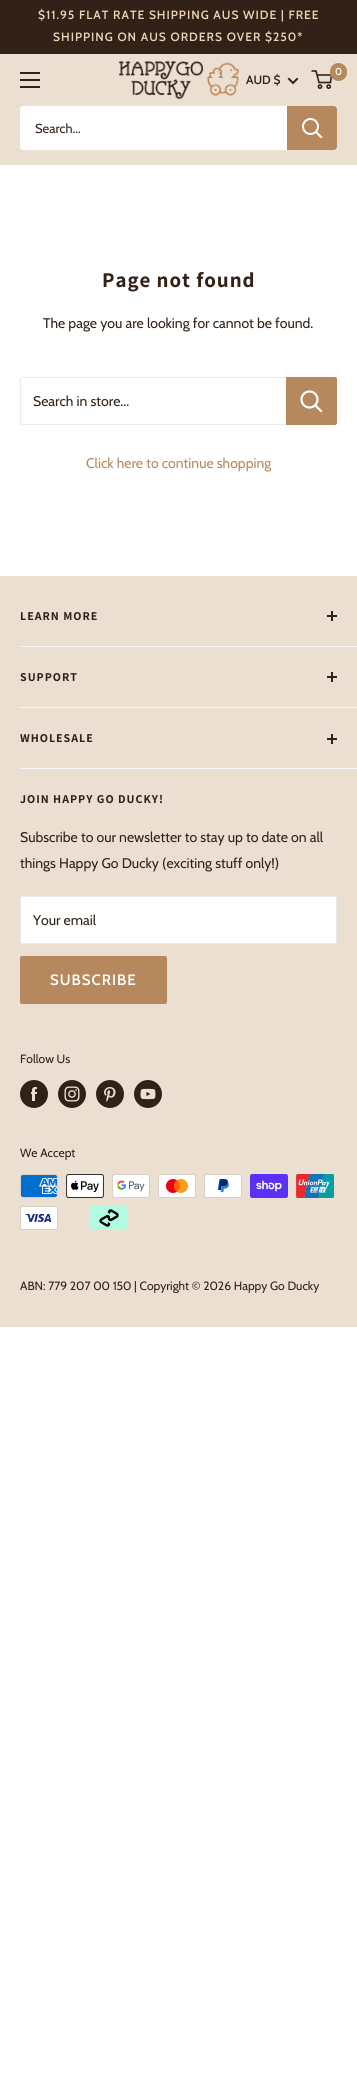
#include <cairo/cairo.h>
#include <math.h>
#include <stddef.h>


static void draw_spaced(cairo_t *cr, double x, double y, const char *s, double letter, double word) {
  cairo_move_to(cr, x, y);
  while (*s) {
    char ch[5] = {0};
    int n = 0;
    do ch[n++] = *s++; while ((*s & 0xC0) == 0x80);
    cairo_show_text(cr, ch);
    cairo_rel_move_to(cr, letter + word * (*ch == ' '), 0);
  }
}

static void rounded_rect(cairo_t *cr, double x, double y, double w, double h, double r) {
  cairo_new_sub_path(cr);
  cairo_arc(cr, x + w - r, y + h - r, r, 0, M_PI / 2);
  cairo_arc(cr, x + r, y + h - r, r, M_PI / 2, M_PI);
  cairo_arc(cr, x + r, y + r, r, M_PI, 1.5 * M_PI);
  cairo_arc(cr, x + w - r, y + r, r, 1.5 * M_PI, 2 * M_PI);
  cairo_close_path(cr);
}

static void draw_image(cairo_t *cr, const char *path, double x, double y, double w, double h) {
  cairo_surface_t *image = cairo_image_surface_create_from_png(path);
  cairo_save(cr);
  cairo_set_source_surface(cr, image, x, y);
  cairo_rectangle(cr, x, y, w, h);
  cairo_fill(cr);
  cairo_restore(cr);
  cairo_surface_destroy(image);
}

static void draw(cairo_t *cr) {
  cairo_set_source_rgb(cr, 1, 1, 1);
  cairo_paint(cr);
  cairo_set_source_rgb(cr, 50 / 255.0, 33 / 255.0, 22 / 255.0);
  cairo_rectangle(cr, 0, 0, 357, 54);
  cairo_fill(cr);
  cairo_set_source_rgb(cr, 235 / 255.0, 223 / 255.0, 210 / 255.0);
  cairo_rectangle(cr, 0, 54, 357, 111);
  cairo_fill(cr);
  draw_image(cr, "images/1.png", 20, 72, 20, 16);
  draw_image(cr, "images/2.png", 119, 61, 120, 38);
  cairo_arc(cr, 320, 86.6, 1.6, 0, 2 * M_PI);
  cairo_set_source_rgb(cr, 50 / 255.0, 33 / 255.0, 22 / 255.0);
  cairo_set_line_width(cr, 1.6);
  cairo_stroke(cr);
  cairo_arc(cr, 328.7, 86.6, 1.6, 0, 2 * M_PI);
  cairo_stroke(cr);
  cairo_new_path(cr);
  cairo_move_to(cr, 317, 75);
  cairo_line_to(cr, 331.5, 75);
  cairo_line_to(cr, 330.5, 82.5);
  cairo_line_to(cr, 319, 82.5);
  cairo_line_to(cr, 316, 71);
  cairo_line_to(cr, 311.5, 71);
  cairo_stroke(cr);
  cairo_set_source_rgb(cr, 181 / 255.0, 136 / 255.0, 93 / 255.0);
  rounded_rect(cr, 330, 63, 17, 18, 8.5);
  cairo_fill(cr);
  cairo_new_path(cr);
  cairo_move_to(cr, 297, 79);
  cairo_line_to(cr, 293, 83);
  cairo_line_to(cr, 289, 79);
  cairo_set_source_rgb(cr, 50 / 255.0, 33 / 255.0, 22 / 255.0);
  cairo_set_line_width(cr, 2);
  cairo_set_line_cap(cr, CAIRO_LINE_CAP_SQUARE);
  cairo_stroke(cr);
  cairo_set_source_rgb(cr, 1, 1, 1);
  rounded_rect(cr, 20, 106, 317, 44, 3);
  cairo_fill(cr);
  cairo_set_source_rgb(cr, 181 / 255.0, 136 / 255.0, 93 / 255.0);
  cairo_new_path(cr);
  cairo_move_to(cr, 287, 106);
  cairo_line_to(cr, 334, 106);
  cairo_curve_to(cr, 335.5, 106, 337, 107.5, 337, 109);
  cairo_line_to(cr, 337, 147);
  cairo_curve_to(cr, 337, 148.5, 335.5, 150, 334, 150);
  cairo_line_to(cr, 287, 150);
  cairo_close_path(cr);
  cairo_fill(cr);
  cairo_new_path(cr);
  cairo_move_to(cr, 321, 137);
  cairo_line_to(cr, 316, 132);
  cairo_set_source_rgb(cr, 1, 1, 1);
  cairo_stroke(cr);
  cairo_arc(cr, 310.5, 126.5, 7.5, 0, 2 * M_PI);
  cairo_set_line_cap(cr, CAIRO_LINE_CAP_BUTT);
  cairo_stroke(cr);
  cairo_set_source_rgb(cr, 234 / 255.0, 234 / 255.0, 234 / 255.0);
  cairo_rectangle(cr, 21, 377, 265, 1);
  cairo_fill(cr);
  cairo_rectangle(cr, 21, 424, 265, 1);
  cairo_fill(cr);
  cairo_rectangle(cr, 20, 378, 1, 46);
  cairo_fill(cr);
  cairo_set_source_rgb(cr, 181 / 255.0, 136 / 255.0, 93 / 255.0);
  cairo_new_path(cr);
  cairo_move_to(cr, 286, 377);
  cairo_line_to(cr, 335, 377);
  cairo_curve_to(cr, 336, 377, 337, 378, 337, 379);
  cairo_line_to(cr, 337, 423);
  cairo_curve_to(cr, 337, 424, 336, 425, 335, 425);
  cairo_line_to(cr, 286, 425);
  cairo_close_path(cr);
  cairo_fill(cr);
  cairo_new_path(cr);
  cairo_move_to(cr, 321, 411);
  cairo_line_to(cr, 315.5, 405.5);
  cairo_set_source_rgb(cr, 1, 1, 1);
  cairo_set_line_width(cr, 2.2);
  cairo_set_line_cap(cr, CAIRO_LINE_CAP_SQUARE);
  cairo_stroke(cr);
  cairo_arc(cr, 309.5, 399.5, 8, 0, 2 * M_PI);
  cairo_set_line_cap(cr, CAIRO_LINE_CAP_BUTT);
  cairo_stroke(cr);
  cairo_set_source_rgb(cr, 235 / 255.0, 223 / 255.0, 210 / 255.0);
  cairo_rectangle(cr, 0, 576, 357, 751);
  cairo_fill(cr);
  cairo_set_source_rgb(cr, 247 / 255.0, 247 / 255.0, 247 / 255.0);
  cairo_rectangle(cr, 20, 646, 337, 1);
  cairo_fill(cr);
  cairo_set_source_rgb(cr, 50 / 255.0, 33 / 255.0, 22 / 255.0);
  cairo_rectangle(cr, 331, 611, 2, 10);
  cairo_fill(cr);
  cairo_rectangle(cr, 327, 615, 10, 2);
  cairo_fill(cr);
  cairo_set_source_rgb(cr, 247 / 255.0, 247 / 255.0, 247 / 255.0);
  cairo_rectangle(cr, 20, 707, 337, 1);
  cairo_fill(cr);
  cairo_set_source_rgb(cr, 50 / 255.0, 33 / 255.0, 22 / 255.0);
  cairo_rectangle(cr, 331, 672, 2, 10);
  cairo_fill(cr);
  cairo_rectangle(cr, 327, 676, 10, 2);
  cairo_fill(cr);
  cairo_set_source_rgb(cr, 247 / 255.0, 247 / 255.0, 247 / 255.0);
  cairo_rectangle(cr, 20, 768, 337, 1);
  cairo_fill(cr);
  cairo_set_source_rgb(cr, 50 / 255.0, 33 / 255.0, 22 / 255.0);
  cairo_rectangle(cr, 331, 734, 2, 10);
  cairo_fill(cr);
  cairo_rectangle(cr, 327, 738, 10, 2);
  cairo_fill(cr);
  cairo_set_source_rgb(cr, 1, 1, 1);
  rounded_rect(cr, 20.5, 896.5, 316, 47, 1.5);
  cairo_fill_preserve(cr);
  cairo_set_source_rgb(cr, 234 / 255.0, 234 / 255.0, 234 / 255.0);
  cairo_set_line_width(cr, 1);
  cairo_stroke(cr);
  cairo_set_source_rgb(cr, 181 / 255.0, 136 / 255.0, 93 / 255.0);
  rounded_rect(cr, 20, 956, 147, 48, 2);
  cairo_fill(cr);
  draw_image(cr, "images/3.png", 20, 1080, 28, 28);
  draw_image(cr, "images/4.png", 58, 1080, 28, 28);
  draw_image(cr, "images/5.png", 96, 1080, 28, 28);
  draw_image(cr, "images/6.png", 134, 1080, 28, 28);
  draw_image(cr, "images/7.png", 20, 1174, 38, 24);
  draw_image(cr, "images/8.png", 66, 1174, 38, 24);
  draw_image(cr, "images/9.png", 112, 1174, 38, 24);
  draw_image(cr, "images/10.png", 158, 1174, 38, 24);
  draw_image(cr, "images/11.png", 204, 1174, 38, 24);
  draw_image(cr, "images/12.png", 250, 1174, 38, 24);
  draw_image(cr, "images/13.png", 296, 1174, 38, 24);
  draw_image(cr, "images/14.png", 20, 1206, 38, 24);
  draw_image(cr, "images/15.png", 90, 1206, 38, 24);
  cairo_select_font_face(cr, "Cabin SemiBold", CAIRO_FONT_SLANT_NORMAL, CAIRO_FONT_WEIGHT_NORMAL);
  cairo_set_font_size(cr, 12);
  cairo_set_source_rgb(cr, 236 / 255.0, 210 / 255.0, 183 / 255.0);
  draw_spaced(cr, 38, 19, "$11.95 FLAT RATE SHIPPING AUS WIDE | FREE", 1, 0);
  draw_spaced(cr, 53, 41, "SHIPPING ON AUS ORDERS OVER $250*", 1, 0);
  cairo_set_font_size(cr, 10);
  cairo_set_source_rgb(cr, 1, 1, 1);
  cairo_move_to(cr, 335, 75);
  cairo_show_text(cr, "0");
  cairo_set_font_size(cr, 12);
  cairo_set_source_rgb(cr, 50 / 255.0, 33 / 255.0, 22 / 255.0);
  cairo_move_to(cr, 246, 84);
  cairo_show_text(cr, "AUD $");
  cairo_select_font_face(cr, "Cabin", CAIRO_FONT_SLANT_NORMAL, CAIRO_FONT_WEIGHT_NORMAL);
  cairo_set_font_size(cr, 13);
  cairo_move_to(cr, 35, 133);
  cairo_show_text(cr, "Search...");
  cairo_select_font_face(cr, "Assistant", CAIRO_FONT_SLANT_NORMAL, CAIRO_FONT_WEIGHT_BOLD);
  cairo_set_font_size(cr, 21);
  draw_spaced(cr, 102, 287, "Page not found", 1, 0);
  cairo_select_font_face(cr, "Cabin", CAIRO_FONT_SLANT_NORMAL, CAIRO_FONT_WEIGHT_NORMAL);
  cairo_set_font_size(cr, 14);
  cairo_move_to(cr, 43, 328);
  cairo_show_text(cr, "The page you are looking for cannot be found.");
  cairo_move_to(cr, 33, 406);
  cairo_show_text(cr, "Search in store...");
  cairo_set_source_rgb(cr, 181 / 255.0, 136 / 255.0, 93 / 255.0);
  cairo_move_to(cr, 86, 468);
  cairo_show_text(cr, "Click here to continue shopping");
  cairo_select_font_face(cr, "Assistant", CAIRO_FONT_SLANT_NORMAL, CAIRO_FONT_WEIGHT_BOLD);
  cairo_set_font_size(cr, 12);
  cairo_set_source_rgb(cr, 50 / 255.0, 33 / 255.0, 22 / 255.0);
  draw_spaced(cr, 20, 620, "LEARN MORE", 1, 0);
  draw_spaced(cr, 20, 681, "SUPPORT", 1, 0);
  draw_spaced(cr, 20, 742, "WHOLESALE", 1, 0);
  draw_spaced(cr, 20, 803, "JOIN HAPPY GO DUCKY!", 1, 0);
  cairo_select_font_face(cr, "Cabin", CAIRO_FONT_SLANT_NORMAL, CAIRO_FONT_WEIGHT_NORMAL);
  cairo_set_font_size(cr, 14);
  cairo_move_to(cr, 20, 842);
  cairo_show_text(cr, "Subscribe to our newsletter to stay up to date on all");
  cairo_move_to(cr, 20, 868);
  cairo_show_text(cr, "things Happy Go Ducky (exciting stuff only!)");
  cairo_move_to(cr, 33, 925);
  cairo_show_text(cr, "Your email");
  cairo_select_font_face(cr, "Cabin SemiBold", CAIRO_FONT_SLANT_NORMAL, CAIRO_FONT_WEIGHT_NORMAL);
  cairo_set_font_size(cr, 15);
  cairo_set_source_rgb(cr, 1, 1, 1);
  draw_spaced(cr, 50, 985, "SUBSCRIBE", 1, 0);
  cairo_select_font_face(cr, "Cabin", CAIRO_FONT_SLANT_NORMAL, CAIRO_FONT_WEIGHT_NORMAL);
  cairo_set_font_size(cr, 12);
  cairo_set_source_rgb(cr, 50 / 255.0, 33 / 255.0, 22 / 255.0);
  cairo_move_to(cr, 20, 1063);
  cairo_show_text(cr, "Follow Us");
  cairo_move_to(cr, 20, 1157);
  cairo_show_text(cr, "We Accept");
  cairo_move_to(cr, 20, 1290);
  cairo_show_text(cr, "ABN: 779 207 00 150 | Copyright © 2026 Happy Go Ducky");
}

int main(void) {
  cairo_surface_t *surface = cairo_image_surface_create(CAIRO_FORMAT_RGB24, 357, 2078);
  cairo_t *cr = cairo_create(surface);
  cairo_font_options_t *options = cairo_font_options_create();
  cairo_font_options_set_hint_metrics(options, CAIRO_HINT_METRICS_OFF);
  cairo_font_options_set_hint_style(options, CAIRO_HINT_STYLE_NONE);
  cairo_set_font_options(cr, options);
  cairo_set_miter_limit(cr, 4);
  draw(cr);
  cairo_surface_write_to_png(surface, "out.png");
  cairo_font_options_destroy(options);
  cairo_destroy(cr);
  cairo_surface_destroy(surface);
  return 0;
}
